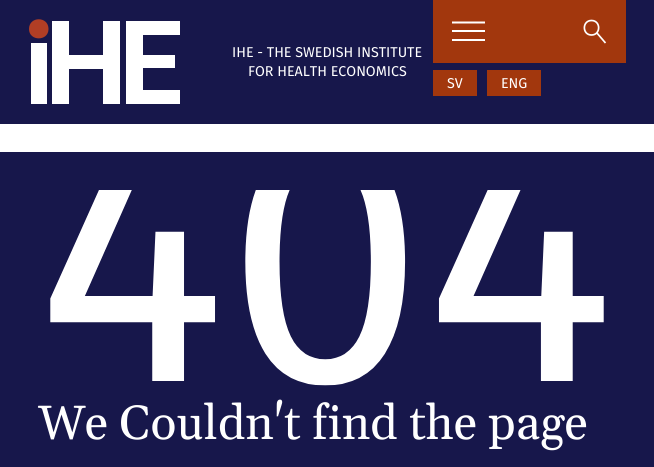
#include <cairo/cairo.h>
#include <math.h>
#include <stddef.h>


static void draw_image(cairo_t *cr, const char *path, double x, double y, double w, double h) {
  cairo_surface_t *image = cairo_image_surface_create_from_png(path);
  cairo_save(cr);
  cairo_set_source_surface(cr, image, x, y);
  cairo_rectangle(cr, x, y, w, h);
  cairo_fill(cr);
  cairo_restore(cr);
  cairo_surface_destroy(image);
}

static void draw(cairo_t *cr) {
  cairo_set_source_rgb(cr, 1, 1, 1);
  cairo_paint(cr);
  cairo_set_source_rgb(cr, 23 / 255.0, 23 / 255.0, 75 / 255.0);
  cairo_rectangle(cr, 0, 0, 654, 124);
  cairo_fill(cr);
  cairo_save(cr);
  cairo_rectangle(cr, 29, 19, 151, 85);
  cairo_clip(cr);
  cairo_set_source_rgb(cr, 1, 1, 1);
  cairo_new_path(cr);
  cairo_move_to(cr, 120, 104);
  cairo_line_to(cr, 103, 104);
  cairo_line_to(cr, 103, 69);
  cairo_line_to(cr, 69, 69);
  cairo_line_to(cr, 69, 104);
  cairo_line_to(cr, 52, 104);
  cairo_line_to(cr, 52, 21);
  cairo_line_to(cr, 69, 21);
  cairo_line_to(cr, 69, 55);
  cairo_line_to(cr, 103, 55);
  cairo_line_to(cr, 103, 21);
  cairo_line_to(cr, 120, 21);
  cairo_close_path(cr);
  cairo_move_to(cr, 175, 68);
  cairo_line_to(cr, 143, 68);
  cairo_line_to(cr, 143, 90);
  cairo_line_to(cr, 181, 90);
  cairo_line_to(cr, 181, 104);
  cairo_line_to(cr, 126, 104);
  cairo_line_to(cr, 126, 21);
  cairo_line_to(cr, 181, 21);
  cairo_line_to(cr, 181, 35);
  cairo_line_to(cr, 143, 35);
  cairo_line_to(cr, 143, 55);
  cairo_line_to(cr, 175, 55);
  cairo_close_path(cr);
  cairo_move_to(cr, 31, 43);
  cairo_line_to(cr, 47, 43);
  cairo_line_to(cr, 47, 104);
  cairo_line_to(cr, 31, 104);
  cairo_close_path(cr);
  cairo_fill(cr);
  cairo_restore(cr);
  cairo_set_source_rgb(cr, 177 / 255.0, 62 / 255.0, 37 / 255.0);
  cairo_new_path(cr);
  cairo_move_to(cr, 48.5, 29);
  cairo_curve_to(cr, 48.5, 41.5, 29, 41.5, 29, 29);
  cairo_curve_to(cr, 29, 16, 48.5, 16, 48.5, 29);
  cairo_fill(cr);
  cairo_set_source_rgb(cr, 162 / 255.0, 55 / 255.0, 13 / 255.0);
  cairo_rectangle(cr, 433, 0, 193, 63);
  cairo_fill(cr);
  cairo_new_path(cr);
  cairo_move_to(cr, 452, 22.5);
  cairo_line_to(cr, 485, 22.5);
  cairo_set_source_rgb(cr, 1, 1, 1);
  cairo_stroke(cr);
  cairo_rectangle(cr, 452, 30, 33, 2);
  cairo_fill(cr);
  cairo_rectangle(cr, 452, 39, 33, 2);
  cairo_fill(cr);
  cairo_new_path(cr);
  cairo_move_to(cr, 591.5, 35);
  cairo_curve_to(cr, 601, 35, 601, 20.5, 591.5, 20.5);
  cairo_curve_to(cr, 582, 20.5, 582, 35, 591.5, 35);
  cairo_close_path(cr);
  cairo_move_to(cr, 596.5, 32.5);
  cairo_line_to(cr, 605.5, 43);
  cairo_set_line_width(cr, 1.7);
  cairo_stroke(cr);
  cairo_set_source_rgb(cr, 162 / 255.0, 55 / 255.0, 13 / 255.0);
  cairo_rectangle(cr, 433, 70, 44, 26);
  cairo_fill(cr);
  cairo_rectangle(cr, 487, 70, 54, 26);
  cairo_fill(cr);
  cairo_set_source_rgb(cr, 23 / 255.0, 23 / 255.0, 75 / 255.0);
  cairo_rectangle(cr, 0, 152, 654, 315);
  cairo_fill(cr);
  draw_image(cr, "images/1.png", 50, 190, 554, 196);
  cairo_select_font_face(cr, "Fira Sans", CAIRO_FONT_SLANT_NORMAL, CAIRO_FONT_WEIGHT_NORMAL);
  cairo_set_font_size(cr, 14.25);
  cairo_set_source_rgb(cr, 1, 1, 1);
  cairo_move_to(cr, 232, 57);
  cairo_show_text(cr, "IHE - THE SWEDISH INSTITUTE");
  cairo_move_to(cr, 248, 76);
  cairo_show_text(cr, "FOR HEALTH ECONOMICS");
  cairo_move_to(cr, 447, 88);
  cairo_show_text(cr, "SV");
  cairo_move_to(cr, 501, 88);
  cairo_show_text(cr, "ENG");
  cairo_select_font_face(cr, "Gelasio", CAIRO_FONT_SLANT_NORMAL, CAIRO_FONT_WEIGHT_NORMAL);
  cairo_set_font_size(cr, 48);
  cairo_move_to(cr, 38, 439);
  cairo_show_text(cr, "We Couldn't find the page");
}

int main(void) {
  cairo_surface_t *surface = cairo_image_surface_create(CAIRO_FORMAT_RGB24, 654, 467);
  cairo_t *cr = cairo_create(surface);
  cairo_font_options_t *options = cairo_font_options_create();
  cairo_font_options_set_hint_metrics(options, CAIRO_HINT_METRICS_OFF);
  cairo_font_options_set_hint_style(options, CAIRO_HINT_STYLE_NONE);
  cairo_set_font_options(cr, options);
  cairo_set_miter_limit(cr, 4);
  draw(cr);
  cairo_surface_write_to_png(surface, "out.png");
  cairo_font_options_destroy(options);
  cairo_destroy(cr);
  cairo_surface_destroy(surface);
  return 0;
}
